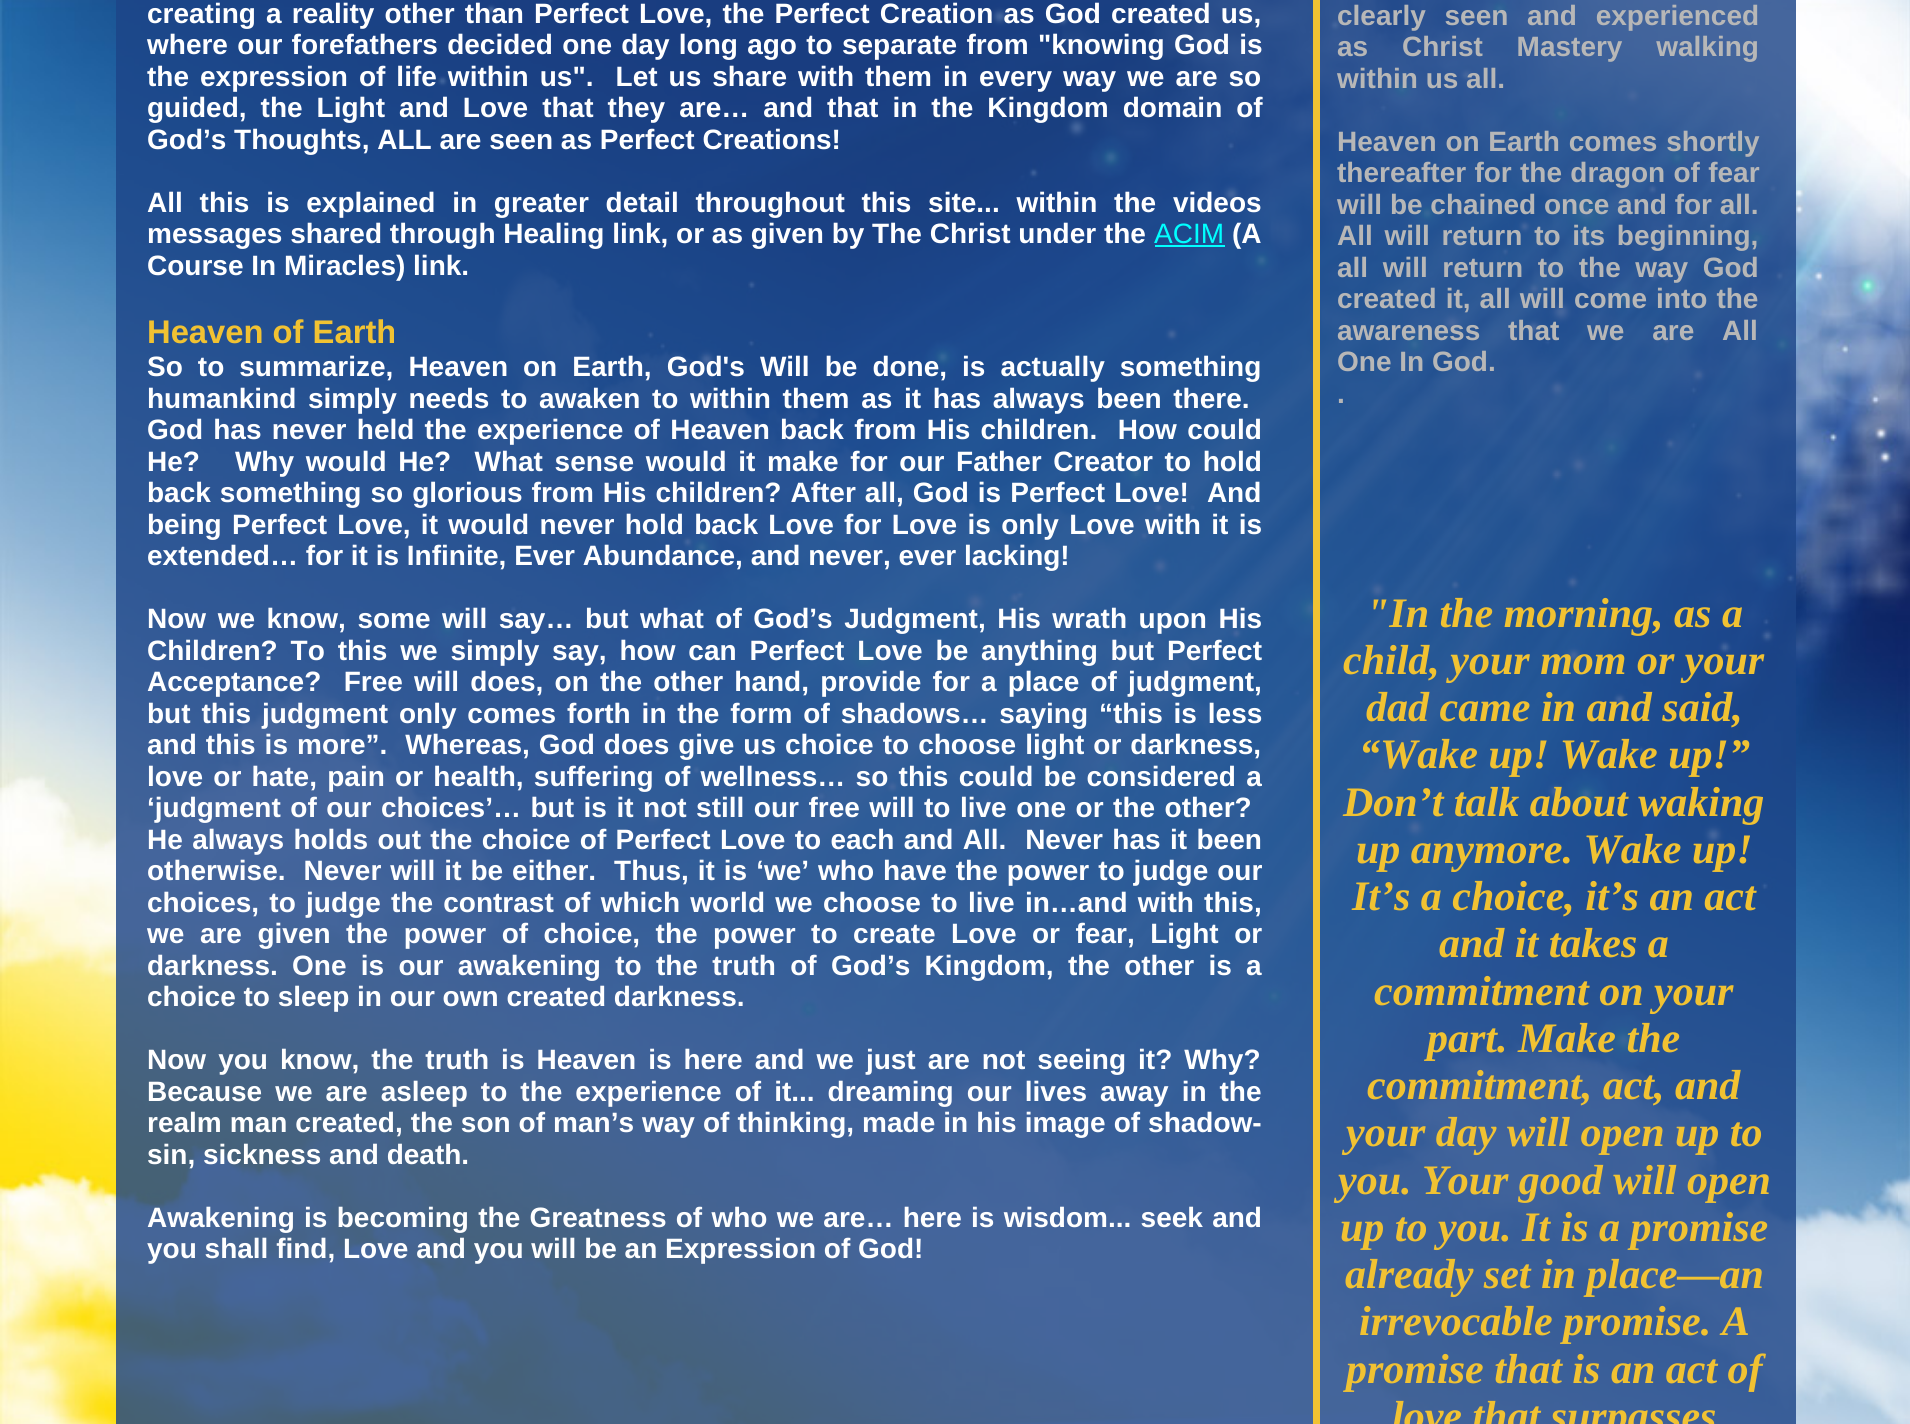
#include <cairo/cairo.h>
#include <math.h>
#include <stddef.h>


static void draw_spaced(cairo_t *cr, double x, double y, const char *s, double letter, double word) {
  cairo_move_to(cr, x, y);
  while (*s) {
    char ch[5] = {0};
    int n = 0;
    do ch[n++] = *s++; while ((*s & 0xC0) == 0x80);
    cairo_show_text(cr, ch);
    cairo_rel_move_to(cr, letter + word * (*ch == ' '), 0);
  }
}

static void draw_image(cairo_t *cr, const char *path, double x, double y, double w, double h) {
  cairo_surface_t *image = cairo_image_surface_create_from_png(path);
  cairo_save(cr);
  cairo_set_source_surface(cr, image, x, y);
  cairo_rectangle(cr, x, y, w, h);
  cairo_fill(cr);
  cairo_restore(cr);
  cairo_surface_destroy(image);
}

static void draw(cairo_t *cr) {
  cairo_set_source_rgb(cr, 1, 1, 1);
  cairo_paint(cr);
  draw_image(cr, "images/1.png", 0, 0, 1910, 1424);
  cairo_set_source_rgba(cr, 28 / 255.0, 69 / 255.0, 135 / 255.0, 0.82);
  cairo_rectangle(cr, 116, 0, 1680, 1424);
  cairo_fill(cr);
  cairo_set_source_rgb(cr, 0, 1, 1);
  cairo_rectangle(cr, 1155, 245, 70, 2);
  cairo_fill(cr);
  cairo_set_source_rgb(cr, 241 / 255.0, 194 / 255.0, 50 / 255.0);
  cairo_rectangle(cr, 1313, 0, 7, 1424);
  cairo_fill(cr);
  cairo_select_font_face(cr, "Liberation Sans", CAIRO_FONT_SLANT_NORMAL, CAIRO_FONT_WEIGHT_BOLD);
  cairo_set_font_size(cr, 28);
  cairo_set_source_rgb(cr, 1, 1, 1);
  draw_spaced(cr, 147, 23, "creating a reality other than Perfect Love, the Perfect Creation as God created us,", 0, 2.4);
  draw_spaced(cr, 147, 54, "where our forefathers decided one day long ago to separate from \"knowing God is", 0, 1.5);
  draw_spaced(cr, 147, 86, "the expression of life within us\".  Let us share with them in every way we are so", 0, 3.25);
  draw_spaced(cr, 147, 117, "guided, the Light and Love that they are… and that in the Kingdom domain of", 0, 6.25);
  cairo_move_to(cr, 147, 149);
  cairo_show_text(cr, "God’s Thoughts, ALL are seen as Perfect Creations!");
  draw_spaced(cr, 147, 212, "All this is explained in greater detail throughout this site... within the videos", 0, 9);
  cairo_move_to(cr, 147, 243);
  cairo_show_text(cr, "messages shared through Healing link, or as given by The Christ under the");
  cairo_select_font_face(cr, "Liberation Sans", CAIRO_FONT_SLANT_NORMAL, CAIRO_FONT_WEIGHT_NORMAL);
  cairo_set_source_rgb(cr, 0, 1, 1);
  cairo_move_to(cr, 1154, 243);
  cairo_show_text(cr, "ACIM");
  cairo_select_font_face(cr, "Liberation Sans", CAIRO_FONT_SLANT_NORMAL, CAIRO_FONT_WEIGHT_BOLD);
  cairo_set_source_rgb(cr, 1, 1, 1);
  cairo_move_to(cr, 1232, 243);
  cairo_show_text(cr, "(A");
  cairo_move_to(cr, 147, 275);
  cairo_show_text(cr, "Course In Miracles) link.");
  cairo_set_font_size(cr, 32.75);
  cairo_set_source_rgb(cr, 241 / 255.0, 194 / 255.0, 50 / 255.0);
  cairo_move_to(cr, 147, 343);
  cairo_show_text(cr, "Heaven of Earth");
  cairo_set_font_size(cr, 28);
  cairo_set_source_rgb(cr, 1, 1, 1);
  draw_spaced(cr, 147, 376, "So to summarize, Heaven on Earth, God's Will be done, is actually something", 0, 7.25);
  draw_spaced(cr, 147, 408, "humankind simply needs to awaken to within them as it has always been there.", 0, 3.9);
  draw_spaced(cr, 147, 439, "God has never held the experience of Heaven back from His children.  How could", 0, 2.5);
  draw_spaced(cr, 147, 471, "He?   Why would He?  What sense would it make for our Father Creator to hold", 0, 3.9);
  draw_spaced(cr, 147, 502, "back something so glorious from His children? After all, God is Perfect Love!  And", 0, 1.25);
  draw_spaced(cr, 147, 534, "being Perfect Love, it would never hold back Love for Love is only Love with it is", 0, 2.6);
  cairo_move_to(cr, 147, 565);
  cairo_show_text(cr, "extended… for it is Infinite, Ever Abundance, and never, ever lacking!");
  draw_spaced(cr, 147, 628, "Now we know, some will say… but what of God’s Judgment, His wrath upon His", 0, 3.75);
  draw_spaced(cr, 147, 660, "Children? To this we simply say, how can Perfect Love be anything but Perfect", 0, 5.1);
  draw_spaced(cr, 147, 691, "Acceptance?  Free will does, on the other hand, provide for a place of judgment,", 0, 3.4);
  draw_spaced(cr, 147, 723, "but this judgment only comes forth in the form of shadows… saying “this is less", 0, 3.1);
  draw_spaced(cr, 147, 754, "and this is more”.  Whereas, God does give us choice to choose light or darkness,", 0, 1.25);
  draw_spaced(cr, 147, 786, "love or hate, pain or health, suffering of wellness… so this could be considered a", 0, 2.5);
  draw_spaced(cr, 147, 817, "‘judgment of our choices’… but is it not still our free will to live one or the other?", 0, 1.75);
  draw_spaced(cr, 147, 849, "He always holds out the choice of Perfect Love to each and All.  Never has it been", 0, 1.6);
  draw_spaced(cr, 147, 880, "otherwise.  Never will it be either.  Thus, it is ‘we’ who have the power to judge our", 0, 1.2);
  draw_spaced(cr, 147, 912, "choices, to judge the contrast of which world we choose to live in…and with this,", 0, 2.5);
  draw_spaced(cr, 147, 943, "we are given the power of choice, the power to create Love or fear, Light or", 0, 7.75);
  draw_spaced(cr, 147, 975, "darkness. One is our awakening to the truth of God’s Kingdom, the other is a", 0, 6.5);
  cairo_move_to(cr, 147, 1006);
  cairo_show_text(cr, "choice to sleep in our own created darkness.");
  draw_spaced(cr, 147, 1069, "Now you know, the truth is Heaven is here and we just are not seeing it? Why?", 0, 4.25);
  draw_spaced(cr, 147, 1101, "Because we are asleep to the experience of it... dreaming our lives away in the", 0, 5.25);
  draw_spaced(cr, 147, 1132, "realm man created, the son of man’s way of thinking, made in his image of shadow-", 0, 0.25);
  cairo_move_to(cr, 147, 1164);
  cairo_show_text(cr, "sin, sickness and death.");
  draw_spaced(cr, 147, 1227, "Awakening is becoming the Greatness of who we are… here is wisdom... seek and", 0, 1.5);
  cairo_move_to(cr, 147, 1258);
  cairo_show_text(cr, "you shall find, Love and you will be an Expression of God!");
  cairo_set_source_rgb(cr, 183 / 255.0, 183 / 255.0, 183 / 255.0);
  draw_spaced(cr, 1337, 25, "clearly seen and experienced", 0, 11);
  draw_spaced(cr, 1337, 56, "as Christ Mastery walking", 0, 26);
  cairo_move_to(cr, 1337, 88);
  cairo_show_text(cr, "within us all.");
  draw_spaced(cr, 1337, 151, "Heaven on Earth comes shortly", 0, 1);
  draw_spaced(cr, 1337, 182, "thereafter for the dragon of fear", 0, 0.5);
  cairo_move_to(cr, 1337, 214);
  cairo_show_text(cr, "will be chained once and for all.");
  draw_spaced(cr, 1337, 245, "All will return to its beginning,", 0, 4);
  draw_spaced(cr, 1337, 277, "all will return to the way God", 0, 6.75);
  draw_spaced(cr, 1337, 308, "created it, all will come into the", 0, 1.25);
  draw_spaced(cr, 1337, 340, "awareness that we are All", 0, 20);
  cairo_move_to(cr, 1337, 371);
  cairo_show_text(cr, "One In God.");
  cairo_move_to(cr, 1337, 403);
  cairo_show_text(cr, ".");
  cairo_select_font_face(cr, "Liberation Serif", CAIRO_FONT_SLANT_ITALIC, CAIRO_FONT_WEIGHT_BOLD);
  cairo_set_font_size(cr, 42);
  cairo_set_source_rgb(cr, 241 / 255.0, 194 / 255.0, 50 / 255.0);
  cairo_move_to(cr, 1366, 627);
  cairo_show_text(cr, "\"In the morning, as a");
  cairo_move_to(cr, 1343, 674);
  cairo_show_text(cr, "child, your mom or your");
  cairo_move_to(cr, 1366, 721);
  cairo_show_text(cr, "dad came in and said,");
  cairo_move_to(cr, 1359, 768);
  cairo_show_text(cr, "“Wake up! Wake up!”");
  cairo_move_to(cr, 1343, 816);
  cairo_show_text(cr, "Don’t talk about waking");
  cairo_move_to(cr, 1356, 863);
  cairo_show_text(cr, "up anymore. Wake up!");
  cairo_move_to(cr, 1352, 910);
  cairo_show_text(cr, "It’s a choice, it’s an act");
  cairo_move_to(cr, 1439, 957);
  cairo_show_text(cr, "and it takes a");
  cairo_move_to(cr, 1374, 1005);
  cairo_show_text(cr, "commitment on your");
  cairo_move_to(cr, 1427, 1052);
  cairo_show_text(cr, "part. Make the");
  cairo_move_to(cr, 1367, 1099);
  cairo_show_text(cr, "commitment, act, and");
  cairo_move_to(cr, 1346, 1146);
  cairo_show_text(cr, "your day will open up to");
  cairo_move_to(cr, 1338, 1194);
  cairo_show_text(cr, "you. Your good will open");
  cairo_move_to(cr, 1340, 1241);
  cairo_show_text(cr, "up to you. It is a promise");
  cairo_move_to(cr, 1345, 1288);
  cairo_show_text(cr, "already set in place—an");
  cairo_move_to(cr, 1359, 1335);
  cairo_show_text(cr, "irrevocable promise. A");
  cairo_move_to(cr, 1346, 1383);
  cairo_show_text(cr, "promise that is an act of");
  cairo_move_to(cr, 1392, 1430);
  cairo_show_text(cr, "love that surpasses");
}

int main(void) {
  cairo_surface_t *surface = cairo_image_surface_create(CAIRO_FORMAT_RGB24, 1910, 1424);
  cairo_t *cr = cairo_create(surface);
  cairo_font_options_t *options = cairo_font_options_create();
  cairo_font_options_set_hint_metrics(options, CAIRO_HINT_METRICS_OFF);
  cairo_font_options_set_hint_style(options, CAIRO_HINT_STYLE_NONE);
  cairo_set_font_options(cr, options);
  cairo_set_miter_limit(cr, 4);
  draw(cr);
  cairo_surface_write_to_png(surface, "out.png");
  cairo_font_options_destroy(options);
  cairo_destroy(cr);
  cairo_surface_destroy(surface);
  return 0;
}
